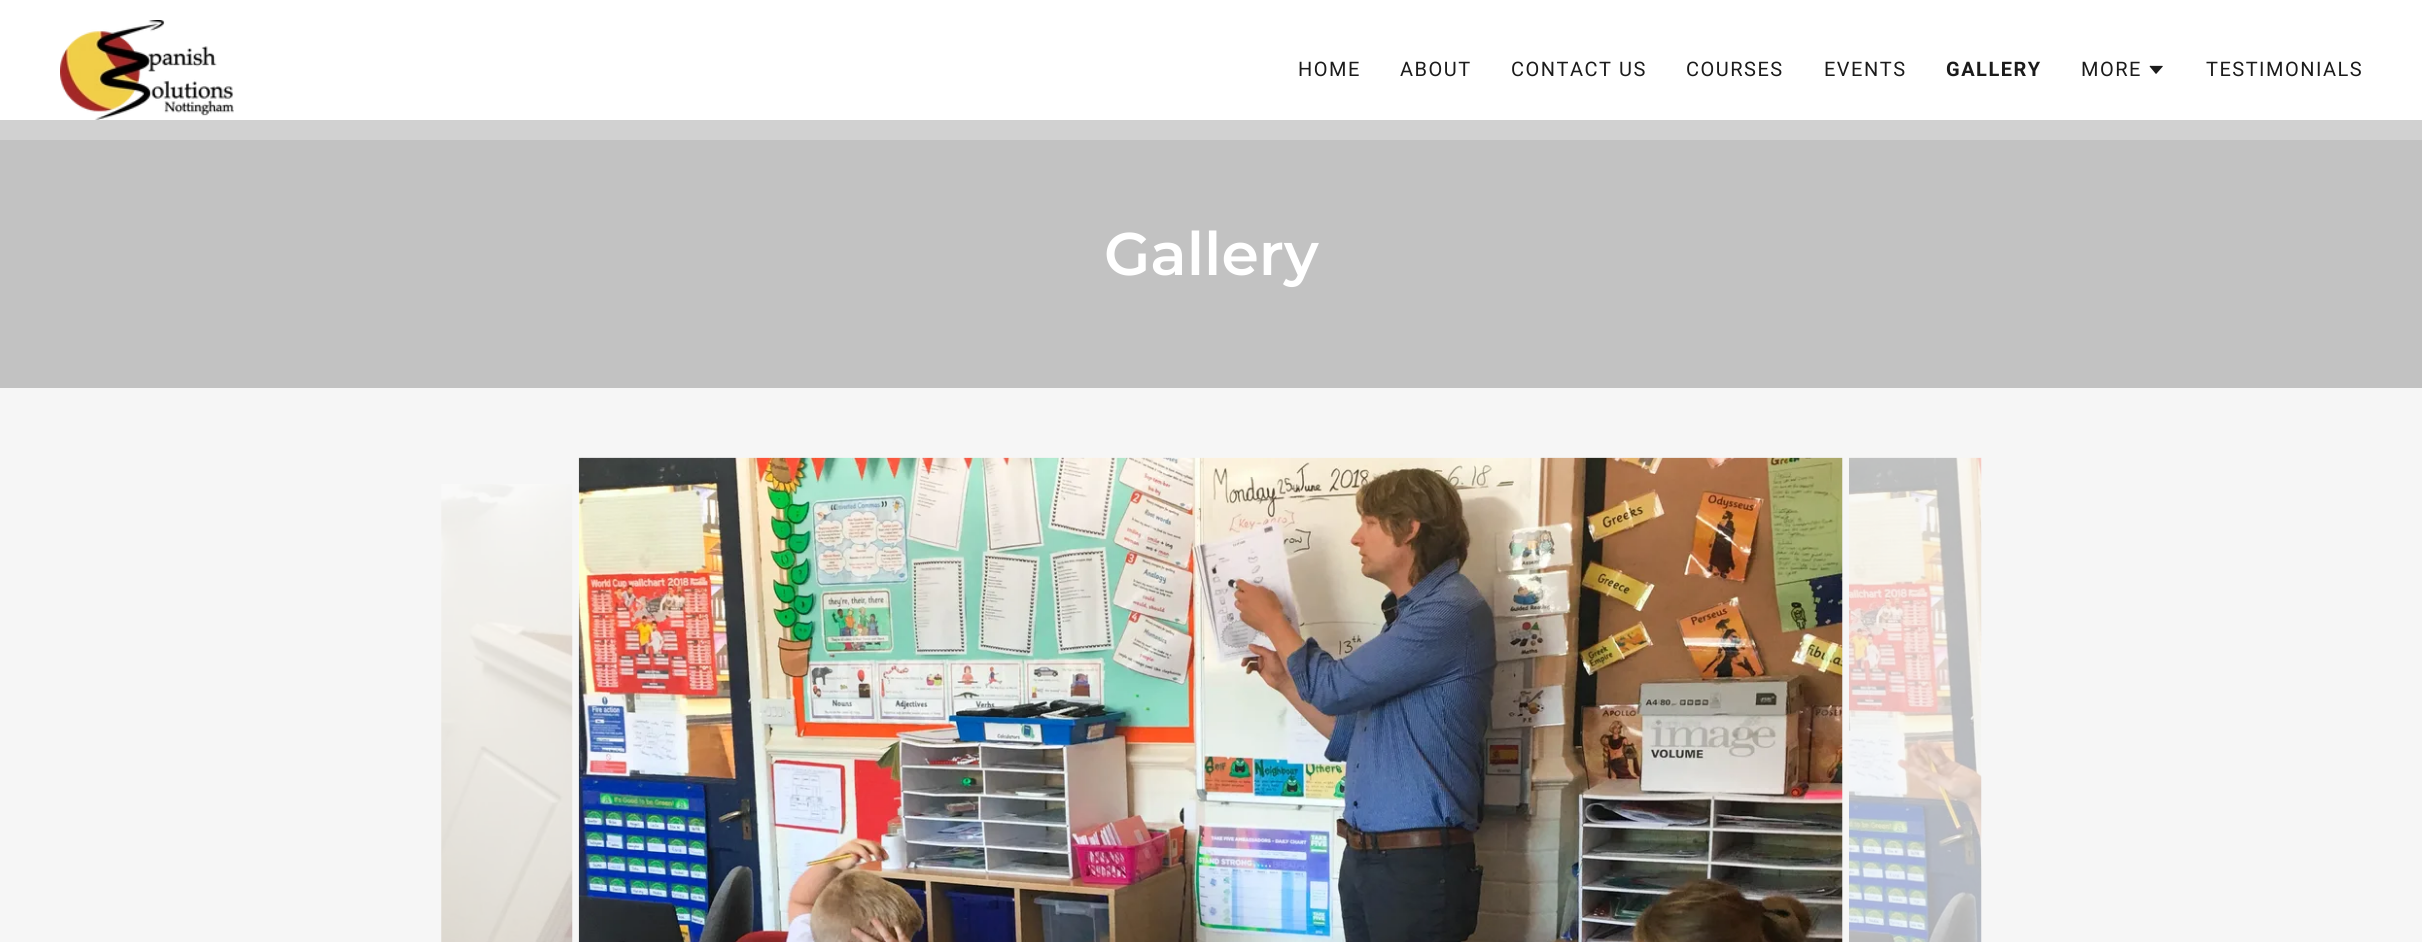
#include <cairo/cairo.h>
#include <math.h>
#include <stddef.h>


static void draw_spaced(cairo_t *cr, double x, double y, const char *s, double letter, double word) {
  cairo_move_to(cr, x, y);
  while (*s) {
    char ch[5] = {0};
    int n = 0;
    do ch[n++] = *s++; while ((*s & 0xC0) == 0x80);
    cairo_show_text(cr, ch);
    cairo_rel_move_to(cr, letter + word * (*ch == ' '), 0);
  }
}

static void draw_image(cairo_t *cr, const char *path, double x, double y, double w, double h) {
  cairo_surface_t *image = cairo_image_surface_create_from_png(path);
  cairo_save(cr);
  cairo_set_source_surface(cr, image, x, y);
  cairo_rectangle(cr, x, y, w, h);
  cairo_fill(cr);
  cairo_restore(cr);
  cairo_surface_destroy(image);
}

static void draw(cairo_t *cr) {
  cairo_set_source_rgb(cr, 1, 1, 1);
  cairo_paint(cr);
  draw_image(cr, "images/1.png", 60, 20, 174, 100);
  draw_image(cr, "images/2.png", 2149, 65, 14, 9);
  cairo_set_source_rgb(cr, 194 / 255.0, 194 / 255.0, 194 / 255.0);
  cairo_rectangle(cr, 0, 140, 2422, 248);
  cairo_fill(cr);
  cairo_set_source_rgb(cr, 209 / 255.0, 209 / 255.0, 209 / 255.0);
  cairo_rectangle(cr, 0, 120, 2422, 20);
  cairo_fill(cr);
  cairo_set_source_rgb(cr, 246 / 255.0, 246 / 255.0, 246 / 255.0);
  cairo_rectangle(cr, 0, 388, 2422, 554);
  cairo_fill(cr);
  draw_image(cr, "images/3.png", 441, 484, 132, 458);
  draw_image(cr, "images/4.png", 578, 457, 1265, 485);
  draw_image(cr, "images/5.png", 1849, 457, 133, 485);
  cairo_select_font_face(cr, "Roboto", CAIRO_FONT_SLANT_NORMAL, CAIRO_FONT_WEIGHT_NORMAL);
  cairo_set_font_size(cr, 20);
  cairo_set_source_rgb(cr, 27 / 255.0, 27 / 255.0, 27 / 255.0);
  draw_spaced(cr, 1298, 76, "HOME", 1.5, 0);
  draw_spaced(cr, 1400, 76, "ABOUT", 1.5, 0);
  draw_spaced(cr, 1511, 76, "CONTACT US", 1.5, 0);
  draw_spaced(cr, 1686, 76, "COURSES", 1.5, 0);
  draw_spaced(cr, 1824, 76, "EVENTS", 1.5, 0);
  cairo_select_font_face(cr, "Roboto", CAIRO_FONT_SLANT_NORMAL, CAIRO_FONT_WEIGHT_BOLD);
  draw_spaced(cr, 1946, 76, "GALLERY", 1.5, 0);
  cairo_select_font_face(cr, "Roboto", CAIRO_FONT_SLANT_NORMAL, CAIRO_FONT_WEIGHT_NORMAL);
  draw_spaced(cr, 2081, 76, "MORE", 1.5, 0);
  draw_spaced(cr, 2206, 76, "TESTIMONIALS", 1.5, 0);
  cairo_select_font_face(cr, "Montserrat SemiBold", CAIRO_FONT_SLANT_NORMAL, CAIRO_FONT_WEIGHT_NORMAL);
  cairo_set_font_size(cr, 60);
  cairo_set_source_rgb(cr, 1, 1, 1);
  cairo_move_to(cr, 1104, 275);
  cairo_show_text(cr, "Gallery");
}

int main(void) {
  cairo_surface_t *surface = cairo_image_surface_create(CAIRO_FORMAT_RGB24, 2422, 942);
  cairo_t *cr = cairo_create(surface);
  cairo_font_options_t *options = cairo_font_options_create();
  cairo_font_options_set_hint_metrics(options, CAIRO_HINT_METRICS_OFF);
  cairo_font_options_set_hint_style(options, CAIRO_HINT_STYLE_NONE);
  cairo_set_font_options(cr, options);
  cairo_set_miter_limit(cr, 4);
  draw(cr);
  cairo_surface_write_to_png(surface, "out.png");
  cairo_font_options_destroy(options);
  cairo_destroy(cr);
  cairo_surface_destroy(surface);
  return 0;
}
